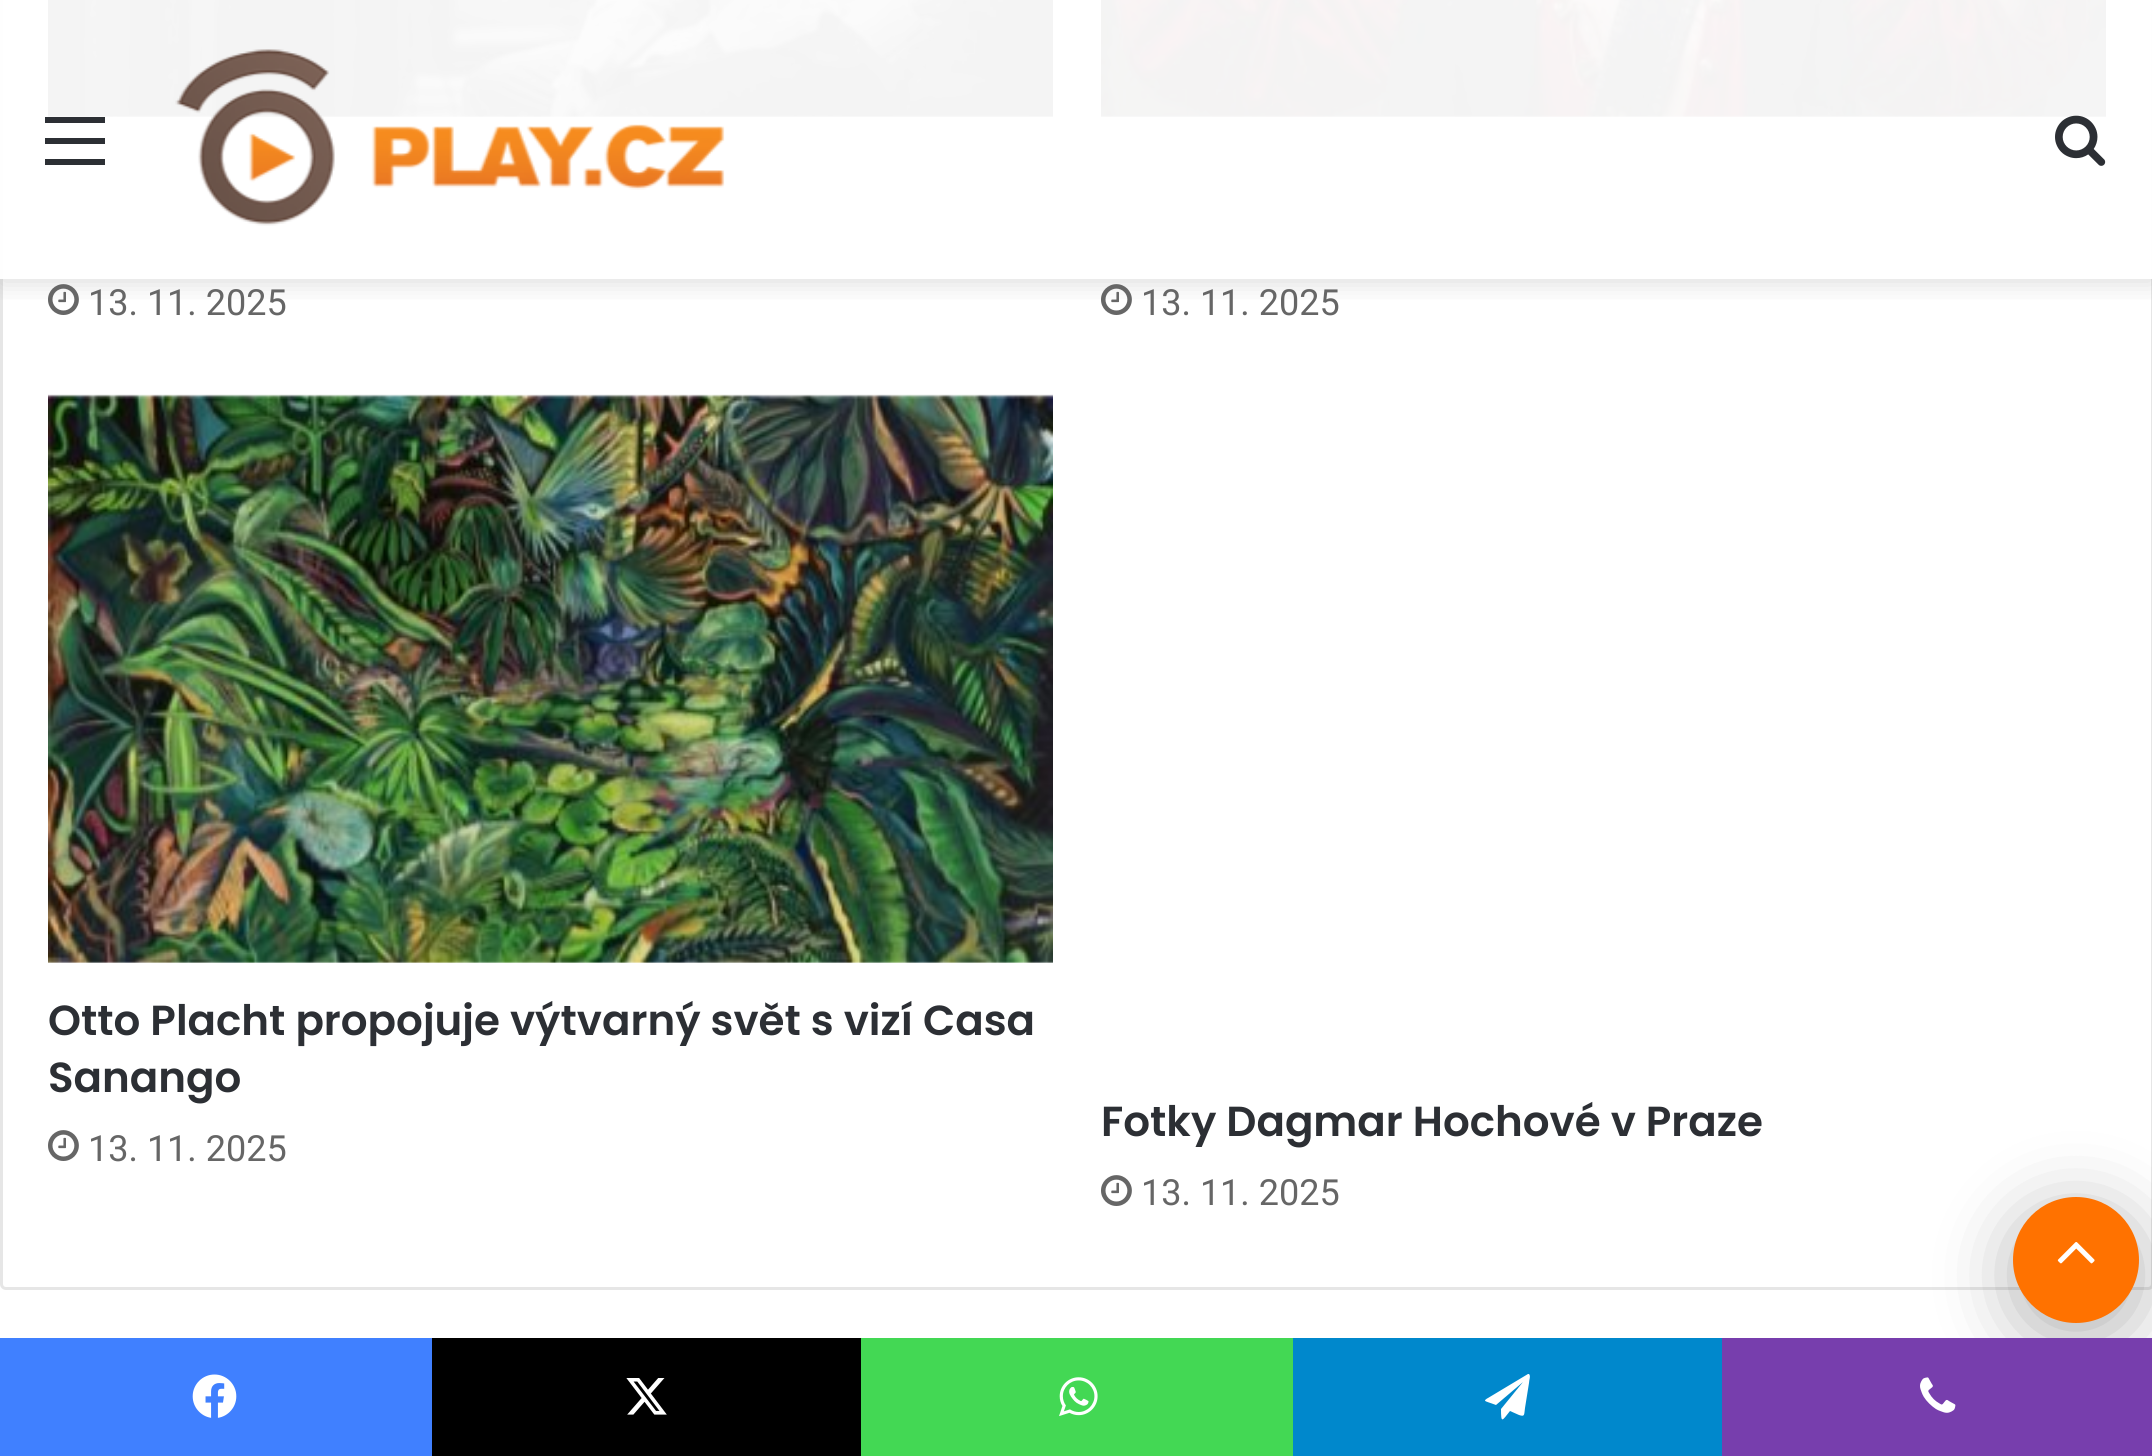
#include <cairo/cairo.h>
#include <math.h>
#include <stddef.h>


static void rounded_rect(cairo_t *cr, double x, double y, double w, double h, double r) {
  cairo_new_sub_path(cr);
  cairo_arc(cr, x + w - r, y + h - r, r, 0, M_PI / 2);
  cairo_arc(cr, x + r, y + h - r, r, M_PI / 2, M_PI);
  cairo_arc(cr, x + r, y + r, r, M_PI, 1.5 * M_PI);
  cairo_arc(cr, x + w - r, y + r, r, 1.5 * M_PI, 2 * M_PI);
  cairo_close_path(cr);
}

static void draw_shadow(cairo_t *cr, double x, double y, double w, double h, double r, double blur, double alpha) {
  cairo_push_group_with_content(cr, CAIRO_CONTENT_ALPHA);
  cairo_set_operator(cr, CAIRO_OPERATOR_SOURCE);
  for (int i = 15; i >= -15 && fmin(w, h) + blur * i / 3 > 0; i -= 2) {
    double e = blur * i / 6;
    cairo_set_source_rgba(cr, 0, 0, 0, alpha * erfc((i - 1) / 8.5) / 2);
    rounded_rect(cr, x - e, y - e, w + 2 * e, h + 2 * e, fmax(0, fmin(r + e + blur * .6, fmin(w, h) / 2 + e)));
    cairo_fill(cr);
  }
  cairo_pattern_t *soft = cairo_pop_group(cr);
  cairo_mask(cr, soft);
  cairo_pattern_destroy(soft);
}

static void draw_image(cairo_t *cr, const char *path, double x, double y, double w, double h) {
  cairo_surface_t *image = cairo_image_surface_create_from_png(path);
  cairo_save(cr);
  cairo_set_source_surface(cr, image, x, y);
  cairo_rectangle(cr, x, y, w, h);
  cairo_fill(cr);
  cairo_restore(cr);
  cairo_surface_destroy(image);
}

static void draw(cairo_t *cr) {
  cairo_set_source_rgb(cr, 1, 1, 1);
  cairo_paint(cr);
  rounded_rect(cr, 1.5, -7.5, 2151, 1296, 4.5);
  cairo_set_source_rgb(cr, 230 / 255.0, 230 / 255.0, 230 / 255.0);
  cairo_set_line_width(cr, 3);
  cairo_stroke(cr);
  draw_image(cr, "images/3.png", 48, 0, 1005, 117);
  draw_image(cr, "images/4.png", 48, 284, 31, 31);
  draw_image(cr, "images/5.png", 1101, 0, 1005, 117);
  draw_image(cr, "images/4.png", 1101, 284, 31, 31);
  cairo_save(cr);
  cairo_rectangle(cr, 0, 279, 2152, 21);
  cairo_clip(cr);
  cairo_set_source_rgb(cr, 99 / 255.0, 99 / 255.0, 99 / 255.0);
  draw_shadow(cr, 0, 6, 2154, 279, 0, 12, 0.2);
  cairo_restore(cr);
  cairo_set_source_rgba(cr, 1, 1, 1, 0.95);
  cairo_rectangle(cr, 0, 0, 2152, 279);
  cairo_fill(cr);
  cairo_set_source_rgb(cr, 44 / 255.0, 47 / 255.0, 52 / 255.0);
  cairo_rectangle(cr, 45, 138, 60, 6);
  cairo_fill(cr);
  cairo_rectangle(cr, 45, 117, 60, 6);
  cairo_fill(cr);
  cairo_rectangle(cr, 45, 159, 60, 6);
  cairo_fill(cr);
  draw_image(cr, "images/1.png", 175, 49, 550, 177);
  draw_image(cr, "images/2.png", 2055, 115, 51, 51);
  draw_image(cr, "images/6.png", 48, 394, 1005, 569);
  draw_image(cr, "images/4.png", 48, 1130, 31, 31);
  draw_image(cr, "images/4.png", 1101, 1175, 31, 31);
  cairo_set_source_rgb(cr, 0, 0, 0);
  draw_shadow(cr, 2013, 1212, 126, 126, 63, 37.5, 0.3);
  cairo_set_source_rgb(cr, 1, 114 / 255.0, 0);
  cairo_arc(cr, 2076, 1260, 63, 0, 2 * M_PI);
  cairo_fill(cr);
  draw_image(cr, "images/7.png", 2057, 1242, 38, 22);
  cairo_set_source_rgb(cr, 64 / 255.0, 128 / 255.0, 1);
  cairo_rectangle(cr, 0, 1338, 432, 118);
  cairo_fill(cr);
  draw_image(cr, "images/8.png", 192, 1374, 45, 44);
  cairo_set_source_rgb(cr, 0, 0, 0);
  cairo_rectangle(cr, 432, 1338, 429, 118);
  cairo_fill(cr);
  draw_image(cr, "images/9.png", 626, 1378, 41, 37);
  cairo_set_source_rgb(cr, 67 / 255.0, 216 / 255.0, 84 / 255.0);
  cairo_rectangle(cr, 861, 1338, 432, 118);
  cairo_fill(cr);
  draw_image(cr, "images/10.png", 1059, 1377, 39, 40);
  cairo_set_source_rgb(cr, 0, 136 / 255.0, 204 / 255.0);
  cairo_rectangle(cr, 1293, 1338, 429, 118);
  cairo_fill(cr);
  cairo_set_source_rgb(cr, 1, 1, 1);
  cairo_new_path(cr);
  cairo_move_to(cr, 1529, 1374);
  cairo_curve_to(cr, 1531, 1376, 1529, 1380, 1529, 1383);
  cairo_line_to(cr, 1525, 1408);
  cairo_curve_to(cr, 1524, 1415, 1525, 1417, 1519, 1415);
  cairo_line_to(cr, 1510, 1411);
  cairo_curve_to(cr, 1502, 1421, 1501, 1424, 1501, 1409);
  cairo_line_to(cr, 1523, 1382);
  cairo_line_to(cr, 1496, 1405);
  cairo_curve_to(cr, 1483, 1400, 1481, 1402, 1493, 1395);
  cairo_line_to(cr, 1528, 1374);
  cairo_close_path(cr);
  cairo_fill(cr);
  cairo_set_source_rgb(cr, 119 / 255.0, 62 / 255.0, 173 / 255.0);
  cairo_rectangle(cr, 1722, 1338, 430, 118);
  cairo_fill(cr);
  draw_image(cr, "images/11.png", 1920, 1377, 36, 36);
  cairo_select_font_face(cr, "Roboto", CAIRO_FONT_SLANT_NORMAL, CAIRO_FONT_WEIGHT_NORMAL);
  cairo_set_font_size(cr, 36);
  cairo_set_source_rgb(cr, 102 / 255.0, 102 / 255.0, 102 / 255.0);
  cairo_move_to(cr, 88, 315);
  cairo_show_text(cr, "13. 11. 2025");
  cairo_move_to(cr, 1141, 315);
  cairo_show_text(cr, "13. 11. 2025");
  cairo_select_font_face(cr, "Poppins SemiBold", CAIRO_FONT_SLANT_NORMAL, CAIRO_FONT_WEIGHT_NORMAL);
  cairo_set_font_size(cr, 42);
  cairo_set_source_rgb(cr, 44 / 255.0, 47 / 255.0, 52 / 255.0);
  cairo_move_to(cr, 48, 1035);
  cairo_show_text(cr, "Otto Placht propojuje výtvarný svět s vizí Casa");
  cairo_move_to(cr, 48, 1092);
  cairo_show_text(cr, "Sanango");
  cairo_select_font_face(cr, "Roboto", CAIRO_FONT_SLANT_NORMAL, CAIRO_FONT_WEIGHT_NORMAL);
  cairo_set_font_size(cr, 36);
  cairo_set_source_rgb(cr, 102 / 255.0, 102 / 255.0, 102 / 255.0);
  cairo_move_to(cr, 88, 1161);
  cairo_show_text(cr, "13. 11. 2025");
  cairo_select_font_face(cr, "Poppins SemiBold", CAIRO_FONT_SLANT_NORMAL, CAIRO_FONT_WEIGHT_NORMAL);
  cairo_set_font_size(cr, 42);
  cairo_set_source_rgb(cr, 44 / 255.0, 47 / 255.0, 52 / 255.0);
  cairo_move_to(cr, 1101, 1136);
  cairo_show_text(cr, "Fotky Dagmar Hochové v Praze");
  cairo_select_font_face(cr, "Roboto", CAIRO_FONT_SLANT_NORMAL, CAIRO_FONT_WEIGHT_NORMAL);
  cairo_set_font_size(cr, 36);
  cairo_set_source_rgb(cr, 102 / 255.0, 102 / 255.0, 102 / 255.0);
  cairo_move_to(cr, 1141, 1205);
  cairo_show_text(cr, "13. 11. 2025");
}

int main(void) {
  cairo_surface_t *surface = cairo_image_surface_create(CAIRO_FORMAT_RGB24, 2152, 1456);
  cairo_t *cr = cairo_create(surface);
  cairo_font_options_t *options = cairo_font_options_create();
  cairo_font_options_set_hint_metrics(options, CAIRO_HINT_METRICS_OFF);
  cairo_font_options_set_hint_style(options, CAIRO_HINT_STYLE_NONE);
  cairo_set_font_options(cr, options);
  cairo_set_miter_limit(cr, 4);
  draw(cr);
  cairo_surface_write_to_png(surface, "out.png");
  cairo_font_options_destroy(options);
  cairo_destroy(cr);
  cairo_surface_destroy(surface);
  return 0;
}
